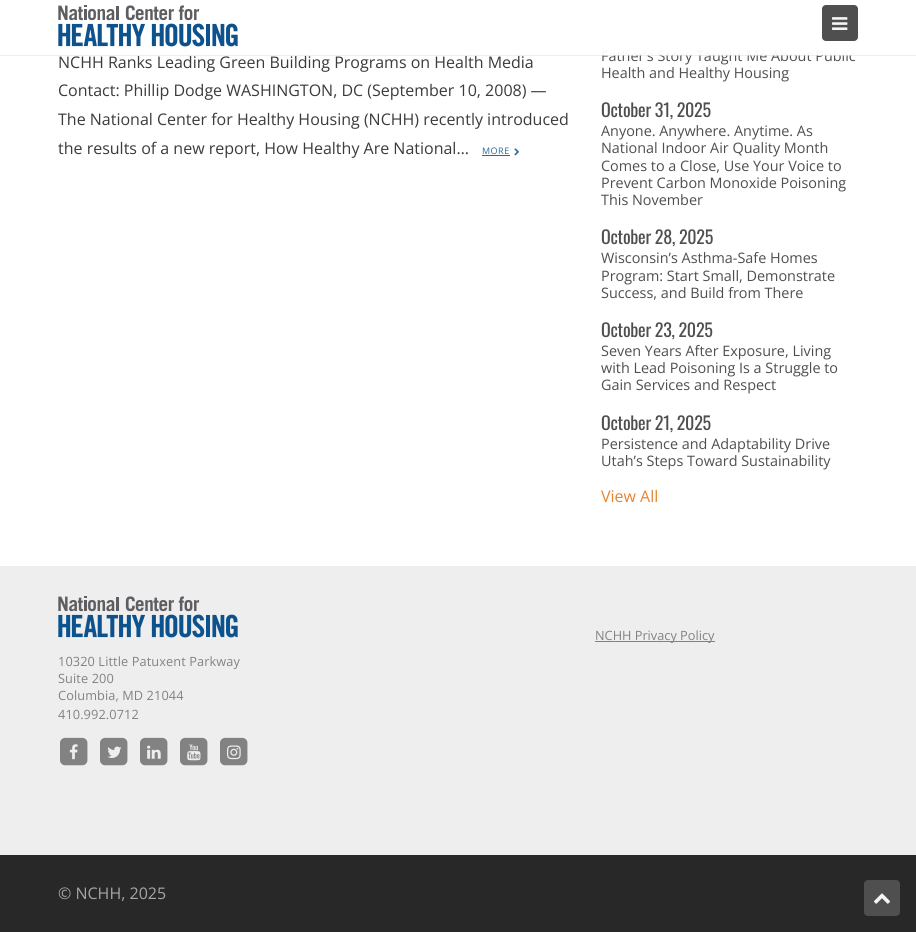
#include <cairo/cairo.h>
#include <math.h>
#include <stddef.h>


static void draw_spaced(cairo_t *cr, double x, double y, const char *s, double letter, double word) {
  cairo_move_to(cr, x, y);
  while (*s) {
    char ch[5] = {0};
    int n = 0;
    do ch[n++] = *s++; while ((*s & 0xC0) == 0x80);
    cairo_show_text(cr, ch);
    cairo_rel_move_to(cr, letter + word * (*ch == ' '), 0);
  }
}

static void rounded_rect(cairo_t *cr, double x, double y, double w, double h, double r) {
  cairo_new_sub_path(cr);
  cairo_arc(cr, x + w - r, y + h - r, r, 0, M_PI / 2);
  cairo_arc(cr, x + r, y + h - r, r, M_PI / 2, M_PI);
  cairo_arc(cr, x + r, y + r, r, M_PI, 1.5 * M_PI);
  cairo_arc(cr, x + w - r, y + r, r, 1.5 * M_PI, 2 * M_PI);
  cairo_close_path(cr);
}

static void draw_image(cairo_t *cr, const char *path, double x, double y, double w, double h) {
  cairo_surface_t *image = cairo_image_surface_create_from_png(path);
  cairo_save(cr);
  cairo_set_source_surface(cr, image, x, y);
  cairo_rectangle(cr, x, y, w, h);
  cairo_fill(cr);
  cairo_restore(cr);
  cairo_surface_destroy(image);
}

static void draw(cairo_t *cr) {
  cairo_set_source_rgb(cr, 1, 1, 1);
  cairo_paint(cr);
  draw_image(cr, "images/1.png", 58, 5, 180, 42);
  cairo_set_source_rgb(cr, 79 / 255.0, 79 / 255.0, 79 / 255.0);
  rounded_rect(cr, 822, 5, 36, 36, 4);
  cairo_fill(cr);
  draw_image(cr, "images/2.png", 832, 17, 16, 13);
  cairo_set_source_rgb(cr, 39 / 255.0, 106 / 255.0, 149 / 255.0);
  cairo_rectangle(cr, 482, 155, 28, 1);
  cairo_fill(cr);
  draw_image(cr, "images/3.png", 514, 148, 5, 8);
  cairo_set_source_rgb(cr, 238 / 255.0, 238 / 255.0, 238 / 255.0);
  cairo_rectangle(cr, 0, 566, 916, 289);
  cairo_fill(cr);
  cairo_set_source_rgb(cr, 131 / 255.0, 130 / 255.0, 130 / 255.0);
  cairo_rectangle(cr, 595, 641, 120, 1);
  cairo_fill(cr);
  draw_image(cr, "images/4.png", 58, 596, 180, 42);
  draw_image(cr, "images/5.png", 60, 737, 28, 29);
  draw_image(cr, "images/6.png", 69, 744, 9, 16);
  draw_image(cr, "images/5.png", 100, 737, 28, 29);
  draw_image(cr, "images/7.png", 107, 746, 15, 12);
  draw_image(cr, "images/5.png", 140, 737, 28, 29);
  draw_image(cr, "images/8.png", 147, 745, 14, 14);
  draw_image(cr, "images/5.png", 180, 737, 28, 29);
  draw_image(cr, "images/9.png", 187, 744, 14, 17);
  draw_image(cr, "images/5.png", 220, 737, 28, 29);
  draw_image(cr, "images/10.png", 227, 745, 14, 15);
  cairo_set_source_rgb(cr, 40 / 255.0, 40 / 255.0, 40 / 255.0);
  cairo_rectangle(cr, 0, 855, 916, 77);
  cairo_fill(cr);
  cairo_set_source_rgb(cr, 79 / 255.0, 79 / 255.0, 79 / 255.0);
  rounded_rect(cr, 864, 880, 36, 36, 4);
  cairo_fill(cr);
  draw_image(cr, "images/11.png", 874, 893, 16, 11);
  cairo_select_font_face(cr, "Open Sans", CAIRO_FONT_SLANT_NORMAL, CAIRO_FONT_WEIGHT_NORMAL);
  cairo_set_font_size(cr, 16);
  cairo_set_source_rgb(cr, 59 / 255.0, 59 / 255.0, 59 / 255.0);
  cairo_move_to(cr, 58, 68);
  cairo_show_text(cr, "NCHH Ranks Leading Green Building Programs on Health Media");
  cairo_move_to(cr, 58, 96);
  cairo_show_text(cr, "Contact: Phillip Dodge WASHINGTON, DC (September 10, 2008) —");
  cairo_move_to(cr, 58, 125);
  cairo_show_text(cr, "The National Center for Healthy Housing (NCHH) recently introduced");
  cairo_move_to(cr, 58, 154);
  cairo_show_text(cr, "the results of a new report, How Healthy Are National…");
  cairo_set_font_size(cr, 9);
  cairo_set_source_rgb(cr, 39 / 255.0, 106 / 255.0, 149 / 255.0);
  draw_spaced(cr, 482, 154, "MORE", 0.5, 0);
  cairo_set_font_size(cr, 14.4);
  cairo_set_source_rgb(cr, 79 / 255.0, 79 / 255.0, 79 / 255.0);
  cairo_move_to(cr, 601, 61);
  cairo_show_text(cr, "Father’s Story Taught Me About Public");
  cairo_set_source_rgba(cr, 1, 1, 1, 0.95);
  cairo_rectangle(cr, 602, 50, 254, 5);
  cairo_fill(cr);
  cairo_set_source_rgba(cr, 227 / 255.0, 227 / 255.0, 227 / 255.0, 0.6);
  cairo_rectangle(cr, 0, 55, 916, 1);
  cairo_fill(cr);
  cairo_set_source_rgb(cr, 79 / 255.0, 79 / 255.0, 79 / 255.0);
  cairo_move_to(cr, 601, 78);
  cairo_show_text(cr, "Health and Healthy Housing");
  cairo_select_font_face(cr, "Oswald", CAIRO_FONT_SLANT_NORMAL, CAIRO_FONT_WEIGHT_NORMAL);
  cairo_set_font_size(cr, 18);
  draw_spaced(cr, 601, 117, "October 31, 2025", -0.25, 0);
  cairo_select_font_face(cr, "Open Sans", CAIRO_FONT_SLANT_NORMAL, CAIRO_FONT_WEIGHT_NORMAL);
  cairo_set_font_size(cr, 14.4);
  cairo_move_to(cr, 601, 136);
  cairo_show_text(cr, "Anyone. Anywhere. Anytime. As");
  cairo_move_to(cr, 601, 153);
  cairo_show_text(cr, "National Indoor Air Quality Month");
  cairo_move_to(cr, 601, 171);
  cairo_show_text(cr, "Comes to a Close, Use Your Voice to");
  cairo_move_to(cr, 601, 188);
  cairo_show_text(cr, "Prevent Carbon Monoxide Poisoning");
  cairo_move_to(cr, 601, 205);
  cairo_show_text(cr, "This November");
  cairo_select_font_face(cr, "Oswald", CAIRO_FONT_SLANT_NORMAL, CAIRO_FONT_WEIGHT_NORMAL);
  cairo_set_font_size(cr, 18);
  draw_spaced(cr, 601, 244, "October 28, 2025", -0.25, 0);
  cairo_select_font_face(cr, "Open Sans", CAIRO_FONT_SLANT_NORMAL, CAIRO_FONT_WEIGHT_NORMAL);
  cairo_set_font_size(cr, 14.4);
  cairo_move_to(cr, 601, 263);
  cairo_show_text(cr, "Wisconsin’s Asthma-Safe Homes");
  cairo_move_to(cr, 601, 281);
  cairo_show_text(cr, "Program: Start Small, Demonstrate");
  cairo_move_to(cr, 601, 298);
  cairo_show_text(cr, "Success, and Build from There");
  cairo_select_font_face(cr, "Oswald", CAIRO_FONT_SLANT_NORMAL, CAIRO_FONT_WEIGHT_NORMAL);
  cairo_set_font_size(cr, 18);
  draw_spaced(cr, 601, 337, "October 23, 2025", -0.25, 0);
  cairo_select_font_face(cr, "Open Sans", CAIRO_FONT_SLANT_NORMAL, CAIRO_FONT_WEIGHT_NORMAL);
  cairo_set_font_size(cr, 14.4);
  cairo_move_to(cr, 601, 356);
  cairo_show_text(cr, "Seven Years After Exposure, Living");
  cairo_move_to(cr, 601, 373);
  cairo_show_text(cr, "with Lead Poisoning Is a Struggle to");
  cairo_move_to(cr, 601, 390);
  cairo_show_text(cr, "Gain Services and Respect");
  cairo_select_font_face(cr, "Oswald", CAIRO_FONT_SLANT_NORMAL, CAIRO_FONT_WEIGHT_NORMAL);
  cairo_set_font_size(cr, 18);
  draw_spaced(cr, 601, 430, "October 21, 2025", -0.25, 0);
  cairo_select_font_face(cr, "Open Sans", CAIRO_FONT_SLANT_NORMAL, CAIRO_FONT_WEIGHT_NORMAL);
  cairo_set_font_size(cr, 14.4);
  cairo_move_to(cr, 601, 449);
  cairo_show_text(cr, "Persistence and Adaptability Drive");
  cairo_move_to(cr, 601, 466);
  cairo_show_text(cr, "Utah’s Steps Toward Sustainability");
  cairo_set_font_size(cr, 16);
  cairo_set_source_rgb(cr, 232 / 255.0, 132 / 255.0, 45 / 255.0);
  cairo_move_to(cr, 601, 502);
  cairo_show_text(cr, "View All");
  cairo_set_font_size(cr, 12.75);
  cairo_set_source_rgb(cr, 131 / 255.0, 130 / 255.0, 130 / 255.0);
  cairo_move_to(cr, 595, 640);
  cairo_show_text(cr, "NCHH Privacy Policy");
  draw_spaced(cr, 58, 666, "10320 Little Patuxent Parkway", 0.1, 0);
  draw_spaced(cr, 58, 683, "Suite 200", 0.1, 0);
  draw_spaced(cr, 58, 700, "Columbia, MD 21044", 0.1, 0);
  draw_spaced(cr, 58, 719, "410.992.0712", 0.1, 0);
  cairo_set_font_size(cr, 16);
  cairo_set_source_rgb(cr, 165 / 255.0, 165 / 255.0, 165 / 255.0);
  cairo_move_to(cr, 58, 899);
  cairo_show_text(cr, "© NCHH, 2025");
}

int main(void) {
  cairo_surface_t *surface = cairo_image_surface_create(CAIRO_FORMAT_RGB24, 916, 932);
  cairo_t *cr = cairo_create(surface);
  cairo_font_options_t *options = cairo_font_options_create();
  cairo_font_options_set_hint_metrics(options, CAIRO_HINT_METRICS_OFF);
  cairo_font_options_set_hint_style(options, CAIRO_HINT_STYLE_NONE);
  cairo_set_font_options(cr, options);
  cairo_set_miter_limit(cr, 4);
  draw(cr);
  cairo_surface_write_to_png(surface, "out.png");
  cairo_font_options_destroy(options);
  cairo_destroy(cr);
  cairo_surface_destroy(surface);
  return 0;
}
